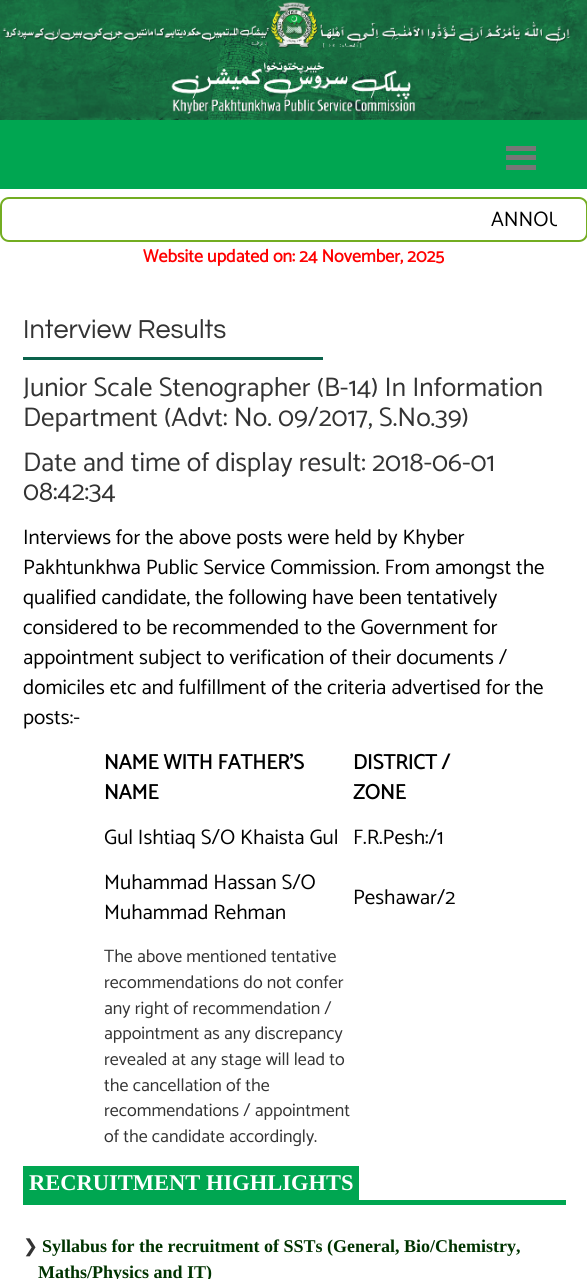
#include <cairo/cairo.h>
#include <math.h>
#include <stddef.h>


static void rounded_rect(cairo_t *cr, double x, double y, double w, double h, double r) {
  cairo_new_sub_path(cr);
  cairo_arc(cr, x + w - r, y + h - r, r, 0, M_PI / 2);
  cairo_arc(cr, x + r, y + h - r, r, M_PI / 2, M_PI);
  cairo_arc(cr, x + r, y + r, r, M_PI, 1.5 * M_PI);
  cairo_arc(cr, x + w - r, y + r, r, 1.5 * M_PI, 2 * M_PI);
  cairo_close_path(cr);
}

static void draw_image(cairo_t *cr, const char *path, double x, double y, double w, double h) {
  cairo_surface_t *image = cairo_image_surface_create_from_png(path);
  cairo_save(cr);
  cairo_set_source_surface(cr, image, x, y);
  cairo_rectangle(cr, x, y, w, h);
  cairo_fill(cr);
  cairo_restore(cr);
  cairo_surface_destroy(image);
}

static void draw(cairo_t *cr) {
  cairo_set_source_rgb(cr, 1, 1, 1);
  cairo_paint(cr);
  draw_image(cr, "images/1.png", 0, 0, 587, 120);
  cairo_set_source_rgb(cr, 0, 166 / 255.0, 81 / 255.0);
  cairo_rectangle(cr, 0, 120, 587, 69);
  cairo_fill(cr);
  cairo_set_source_rgb(cr, 119 / 255.0, 119 / 255.0, 119 / 255.0);
  cairo_rectangle(cr, 506, 146, 30, 5);
  cairo_fill(cr);
  cairo_rectangle(cr, 506, 155, 30, 5);
  cairo_fill(cr);
  cairo_rectangle(cr, 506, 165, 30, 5);
  cairo_fill(cr);
  rounded_rect(cr, 1, 198, 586, 43, 8);
  cairo_set_source_rgb(cr, 115 / 255.0, 173 / 255.0, 33 / 255.0);
  cairo_stroke(cr);
  cairo_set_source_rgb(cr, 11 / 255.0, 98 / 255.0, 75 / 255.0);
  cairo_rectangle(cr, 23, 357, 300, 3);
  cairo_fill(cr);
  cairo_set_source_rgb(cr, 0, 166 / 255.0, 81 / 255.0);
  cairo_rectangle(cr, 23, 1200, 543, 5);
  cairo_fill(cr);
  cairo_rectangle(cr, 23, 1166, 336, 34);
  cairo_fill(cr);
  cairo_save(cr);
  cairo_rectangle(cr, 32, 206, 525, 30);
  cairo_clip(cr);
  cairo_select_font_face(cr, "Catamaran", CAIRO_FONT_SLANT_NORMAL, CAIRO_FONT_WEIGHT_NORMAL);
  cairo_set_font_size(cr, 21);
  cairo_set_source_rgb(cr, 0, 0, 0);
  cairo_move_to(cr, 491, 226);
  cairo_show_text(cr, "ANNOU");
  cairo_restore(cr);
  cairo_select_font_face(cr, "Catamaran", CAIRO_FONT_SLANT_NORMAL, CAIRO_FONT_WEIGHT_BOLD);
  cairo_set_font_size(cr, 18);
  cairo_set_source_rgb(cr, 1, 0, 0);
  cairo_move_to(cr, 143, 262);
  cairo_show_text(cr, "Website updated on: 24 November, 2025");
  cairo_select_font_face(cr, "Questrial", CAIRO_FONT_SLANT_NORMAL, CAIRO_FONT_WEIGHT_NORMAL);
  cairo_set_font_size(cr, 27);
  cairo_set_source_rgb(cr, 51 / 255.0, 51 / 255.0, 51 / 255.0);
  cairo_move_to(cr, 23, 338);
  cairo_show_text(cr, "Interview Results");
  cairo_select_font_face(cr, "Catamaran", CAIRO_FONT_SLANT_NORMAL, CAIRO_FONT_WEIGHT_NORMAL);
  cairo_move_to(cr, 23, 396);
  cairo_show_text(cr, "Junior Scale Stenographer (B-14) In Information");
  cairo_move_to(cr, 23, 426);
  cairo_show_text(cr, "Department (Advt: No. 09/2017, S.No.39)");
  cairo_move_to(cr, 23, 471);
  cairo_show_text(cr, "Date and time of display result: 2018-06-01");
  cairo_move_to(cr, 23, 500);
  cairo_show_text(cr, "08:42:34");
  cairo_set_font_size(cr, 21);
  cairo_set_source_rgb(cr, 0, 0, 0);
  cairo_move_to(cr, 23, 544);
  cairo_show_text(cr, "Interviews for the above posts were held by Khyber");
  cairo_move_to(cr, 23, 574);
  cairo_show_text(cr, "Pakhtunkhwa Public Service Commission. From amongst the");
  cairo_move_to(cr, 23, 604);
  cairo_show_text(cr, "qualified candidate, the following have been tentatively");
  cairo_move_to(cr, 23, 634);
  cairo_show_text(cr, "considered to be recommended to the Government for");
  cairo_move_to(cr, 23, 664);
  cairo_show_text(cr, "appointment subject to verification of their documents /");
  cairo_move_to(cr, 23, 694);
  cairo_show_text(cr, "domiciles etc and fulfillment of the criteria advertised for the");
  cairo_move_to(cr, 23, 724);
  cairo_show_text(cr, "posts:-");
  cairo_select_font_face(cr, "Catamaran", CAIRO_FONT_SLANT_NORMAL, CAIRO_FONT_WEIGHT_BOLD);
  cairo_move_to(cr, 104, 769);
  cairo_show_text(cr, "NAME WITH FATHER’S");
  cairo_move_to(cr, 104, 799);
  cairo_show_text(cr, "NAME");
  cairo_move_to(cr, 353, 769);
  cairo_show_text(cr, "DISTRICT /");
  cairo_move_to(cr, 353, 799);
  cairo_show_text(cr, "ZONE");
  cairo_select_font_face(cr, "Catamaran", CAIRO_FONT_SLANT_NORMAL, CAIRO_FONT_WEIGHT_NORMAL);
  cairo_move_to(cr, 104, 844);
  cairo_show_text(cr, "Gul Ishtiaq S/O Khaista Gul");
  cairo_move_to(cr, 353, 844);
  cairo_show_text(cr, "F.R.Pesh:/1");
  cairo_move_to(cr, 104, 889);
  cairo_show_text(cr, "Muhammad Hassan S/O");
  cairo_move_to(cr, 104, 919);
  cairo_show_text(cr, "Muhammad Rehman");
  cairo_move_to(cr, 353, 904);
  cairo_show_text(cr, "Peshawar/2");
  cairo_set_font_size(cr, 18);
  cairo_set_source_rgb(cr, 51 / 255.0, 51 / 255.0, 51 / 255.0);
  cairo_move_to(cr, 104, 962);
  cairo_show_text(cr, "The above mentioned tentative");
  cairo_move_to(cr, 104, 988);
  cairo_show_text(cr, "recommendations do not confer");
  cairo_move_to(cr, 104, 1014);
  cairo_show_text(cr, "any right of recommendation /");
  cairo_move_to(cr, 104, 1039);
  cairo_show_text(cr, "appointment as any discrepancy");
  cairo_move_to(cr, 104, 1065);
  cairo_show_text(cr, "revealed at any stage will lead to");
  cairo_move_to(cr, 104, 1091);
  cairo_show_text(cr, "the cancellation of the");
  cairo_move_to(cr, 104, 1116);
  cairo_show_text(cr, "recommendations / appointment");
  cairo_move_to(cr, 104, 1142);
  cairo_show_text(cr, "of the candidate accordingly.");
  cairo_select_font_face(cr, "Liberation Serif", CAIRO_FONT_SLANT_NORMAL, CAIRO_FONT_WEIGHT_BOLD);
  cairo_set_font_size(cr, 22.5);
  cairo_set_source_rgb(cr, 1, 1, 1);
  cairo_move_to(cr, 29, 1190);
  cairo_show_text(cr, "RECRUITMENT HIGHLIGHTS");
  cairo_select_font_face(cr, "DejaVu Sans", CAIRO_FONT_SLANT_NORMAL, CAIRO_FONT_WEIGHT_NORMAL);
  cairo_set_font_size(cr, 18);
  cairo_set_source_rgb(cr, 51 / 255.0, 51 / 255.0, 51 / 255.0);
  cairo_move_to(cr, 23, 1252);
  cairo_show_text(cr, "❯");
  cairo_select_font_face(cr, "Liberation Serif", CAIRO_FONT_SLANT_NORMAL, CAIRO_FONT_WEIGHT_BOLD);
  cairo_set_source_rgb(cr, 0, 51 / 255.0, 0);
  cairo_move_to(cr, 42, 1252);
  cairo_show_text(cr, "Syllabus for the recruitment of SSTs (General, Bio/Chemistry,");
  cairo_move_to(cr, 38, 1278);
  cairo_show_text(cr, "Maths/Physics and IT)");
}

int main(void) {
  cairo_surface_t *surface = cairo_image_surface_create(CAIRO_FORMAT_RGB24, 587, 1279);
  cairo_t *cr = cairo_create(surface);
  cairo_font_options_t *options = cairo_font_options_create();
  cairo_font_options_set_hint_metrics(options, CAIRO_HINT_METRICS_OFF);
  cairo_font_options_set_hint_style(options, CAIRO_HINT_STYLE_NONE);
  cairo_set_font_options(cr, options);
  cairo_set_miter_limit(cr, 4);
  draw(cr);
  cairo_surface_write_to_png(surface, "out.png");
  cairo_font_options_destroy(options);
  cairo_destroy(cr);
  cairo_surface_destroy(surface);
  return 0;
}
